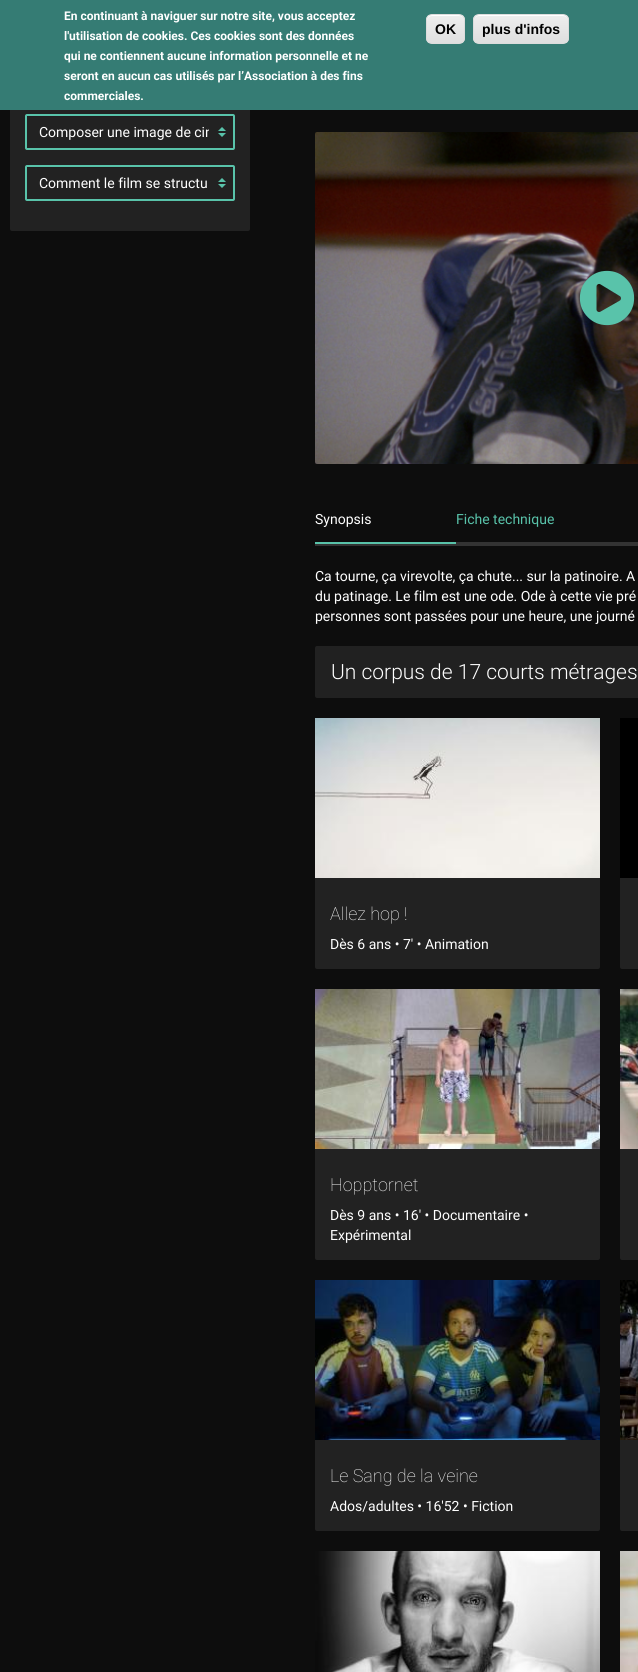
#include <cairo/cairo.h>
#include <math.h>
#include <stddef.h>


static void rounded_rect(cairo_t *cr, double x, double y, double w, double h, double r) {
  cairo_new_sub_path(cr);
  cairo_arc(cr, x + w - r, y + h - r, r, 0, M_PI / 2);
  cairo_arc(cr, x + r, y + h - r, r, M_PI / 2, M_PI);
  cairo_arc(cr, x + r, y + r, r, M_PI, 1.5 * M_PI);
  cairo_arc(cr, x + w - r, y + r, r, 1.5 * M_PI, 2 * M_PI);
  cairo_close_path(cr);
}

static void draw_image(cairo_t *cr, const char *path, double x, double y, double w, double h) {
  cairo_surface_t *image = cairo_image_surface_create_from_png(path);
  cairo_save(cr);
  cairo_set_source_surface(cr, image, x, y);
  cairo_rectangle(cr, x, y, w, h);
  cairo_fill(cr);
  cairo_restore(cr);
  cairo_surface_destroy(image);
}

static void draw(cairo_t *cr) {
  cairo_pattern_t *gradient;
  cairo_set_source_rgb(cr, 13 / 255.0, 13 / 255.0, 13 / 255.0);
  cairo_paint(cr);
  cairo_set_source_rgb(cr, 34 / 255.0, 34 / 255.0, 34 / 255.0);
  rounded_rect(cr, 10, -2, 240, 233, 2);
  cairo_fill(cr);
  cairo_set_source_rgb(cr, 53 / 255.0, 124 / 255.0, 116 / 255.0);
  cairo_rectangle(cr, 0, 0, 638, 110);
  cairo_fill(cr);
  cairo_save(cr);
  rounded_rect(cr, 426, 14, 39, 30, 6);
  cairo_clip(cr);
  gradient = cairo_pattern_create_linear(446, 15, 446, 43);
  cairo_pattern_add_color_stop_rgba(gradient, 0.05, 237 / 255.0, 237 / 255.0, 237 / 255.0, 1);
  cairo_pattern_add_color_stop_rgba(gradient, 1, 223 / 255.0, 223 / 255.0, 223 / 255.0, 1);
  cairo_set_source(cr, gradient);
  cairo_pattern_destroy(gradient);
  cairo_rectangle(cr, 426, 15, 39, 28);
  cairo_fill(cr);
  cairo_restore(cr);
  cairo_set_source_rgb(cr, 1, 1, 1);
  cairo_new_path(cr);
  cairo_move_to(cr, 432, 16);
  cairo_line_to(cr, 459, 16);
  cairo_curve_to(cr, 463, 16, 464, 18.5, 464, 22);
  cairo_curve_to(cr, 464, 15, 460.5, 15, 454.5, 15);
  cairo_line_to(cr, 436.5, 15);
  cairo_curve_to(cr, 431.5, 15, 427, 14.5, 427, 20.5);
  cairo_curve_to(cr, 427.5, 18, 429, 16, 432, 16);
  cairo_close_path(cr);
  cairo_fill(cr);
  rounded_rect(cr, 426.5, 14.5, 38, 29, 5.5);
  cairo_set_source_rgb(cr, 220 / 255.0, 220 / 255.0, 220 / 255.0);
  cairo_set_line_width(cr, 1);
  cairo_stroke(cr);
  cairo_save(cr);
  rounded_rect(cr, 473, 14, 96, 30, 6);
  cairo_clip(cr);
  gradient = cairo_pattern_create_linear(521, 15, 521, 43);
  cairo_pattern_add_color_stop_rgba(gradient, 0.05, 237 / 255.0, 237 / 255.0, 237 / 255.0, 1);
  cairo_pattern_add_color_stop_rgba(gradient, 1, 223 / 255.0, 223 / 255.0, 223 / 255.0, 1);
  cairo_set_source(cr, gradient);
  cairo_pattern_destroy(gradient);
  cairo_rectangle(cr, 473, 15, 96, 28);
  cairo_fill(cr);
  cairo_restore(cr);
  cairo_set_source_rgb(cr, 1, 1, 1);
  cairo_new_path(cr);
  cairo_move_to(cr, 479, 16);
  cairo_line_to(cr, 563, 16);
  cairo_curve_to(cr, 566, 16, 568, 18, 568, 21);
  cairo_curve_to(cr, 568, 12, 555, 15, 549, 15);
  cairo_line_to(cr, 493, 15);
  cairo_curve_to(cr, 487, 15, 474, 12, 474, 21);
  cairo_curve_to(cr, 474, 18, 476, 16, 479, 16);
  cairo_close_path(cr);
  cairo_fill(cr);
  rounded_rect(cr, 473.5, 14.5, 95, 29, 5.5);
  cairo_set_source_rgb(cr, 220 / 255.0, 220 / 255.0, 220 / 255.0);
  cairo_stroke(cr);
  draw_image(cr, "images/1.png", 218, 127, 8, 10);
  cairo_set_source_rgb(cr, 31 / 255.0, 31 / 255.0, 31 / 255.0);
  cairo_rectangle(cr, 27, 116, 206, 1);
  cairo_fill(cr);
  rounded_rect(cr, 26, 115, 208, 34, 1);
  cairo_set_source_rgb(cr, 89 / 255.0, 195 / 255.0, 170 / 255.0);
  cairo_set_line_width(cr, 2);
  cairo_stroke(cr);
  draw_image(cr, "images/1.png", 218, 178, 8, 10);
  cairo_set_source_rgb(cr, 31 / 255.0, 31 / 255.0, 31 / 255.0);
  cairo_rectangle(cr, 27, 167, 206, 1);
  cairo_fill(cr);
  rounded_rect(cr, 26, 166, 208, 34, 1);
  cairo_set_source_rgb(cr, 89 / 255.0, 195 / 255.0, 170 / 255.0);
  cairo_stroke(cr);
  draw_image(cr, "images/2.png", 315, 132, 323, 332);
  draw_image(cr, "images/3.png", 579, 270, 56, 56);
  cairo_set_source_rgb(cr, 51 / 255.0, 51 / 255.0, 51 / 255.0);
  cairo_rectangle(cr, 315, 544, 323, 2);
  cairo_fill(cr);
  cairo_set_source_rgb(cr, 89 / 255.0, 195 / 255.0, 170 / 255.0);
  cairo_rectangle(cr, 315, 542, 141, 2);
  cairo_fill(cr);
  cairo_set_source_rgb(cr, 51 / 255.0, 51 / 255.0, 51 / 255.0);
  cairo_rectangle(cr, 456, 542, 182, 2);
  cairo_fill(cr);
  cairo_set_source_rgb(cr, 33 / 255.0, 33 / 255.0, 33 / 255.0);
  rounded_rect(cr, 315, 646, 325, 52, 2);
  cairo_fill(cr);
  cairo_set_source_rgb(cr, 34 / 255.0, 34 / 255.0, 34 / 255.0);
  rounded_rect(cr, 315, 718, 285, 251, 2);
  cairo_fill(cr);
  draw_image(cr, "images/4.png", 315, 718, 285, 160);
  rounded_rect(cr, 620, 718, 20, 251, 2);
  cairo_fill(cr);
  cairo_set_source_rgb(cr, 0, 0, 0);
  cairo_rectangle(cr, 620, 718, 18, 160);
  cairo_fill(cr);
  cairo_set_source_rgb(cr, 34 / 255.0, 34 / 255.0, 34 / 255.0);
  rounded_rect(cr, 315, 989, 285, 271, 2);
  cairo_fill(cr);
  draw_image(cr, "images/5.png", 315, 989, 285, 160);
  rounded_rect(cr, 620, 989, 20, 271, 2);
  cairo_fill(cr);
  draw_image(cr, "images/6.png", 620, 989, 18, 160);
  rounded_rect(cr, 315, 1280, 285, 251, 2);
  cairo_fill(cr);
  draw_image(cr, "images/7.png", 315, 1280, 285, 160);
  rounded_rect(cr, 620, 1280, 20, 251, 2);
  cairo_fill(cr);
  draw_image(cr, "images/8.png", 620, 1280, 18, 160);
  draw_image(cr, "images/9.png", 315, 1551, 285, 121);
  draw_image(cr, "images/10.png", 620, 1551, 18, 121);
  cairo_select_font_face(cr, "Roboto", CAIRO_FONT_SLANT_NORMAL, CAIRO_FONT_WEIGHT_BOLD);
  cairo_set_font_size(cr, 12);
  cairo_set_source_rgb(cr, 1, 1, 1);
  cairo_move_to(cr, 64, 20);
  cairo_show_text(cr, "En continuant à naviguer sur notre site, vous acceptez");
  cairo_move_to(cr, 64, 40);
  cairo_show_text(cr, "l'utilisation de cookies. Ces cookies sont des données");
  cairo_move_to(cr, 64, 60);
  cairo_show_text(cr, "qui ne contiennent aucune information personnelle et ne");
  cairo_move_to(cr, 64, 80);
  cairo_show_text(cr, "seront en aucun cas utilisés par l’Association à des fins");
  cairo_move_to(cr, 64, 100);
  cairo_show_text(cr, "commerciales.");
  cairo_select_font_face(cr, "Liberation Sans", CAIRO_FONT_SLANT_NORMAL, CAIRO_FONT_WEIGHT_BOLD);
  cairo_set_font_size(cr, 14);
  cairo_set_source_rgb(cr, 0, 0, 0);
  cairo_move_to(cr, 435, 34);
  cairo_show_text(cr, "OK");
  cairo_move_to(cr, 482, 34);
  cairo_show_text(cr, "plus d'infos");
  cairo_save(cr);
  cairo_rectangle(cr, 39, 122, 170, 20);
  cairo_clip(cr);
  cairo_select_font_face(cr, "Roboto", CAIRO_FONT_SLANT_NORMAL, CAIRO_FONT_WEIGHT_NORMAL);
  cairo_set_source_rgb(cr, 1, 1, 1);
  cairo_move_to(cr, 39, 137);
  cairo_show_text(cr, "Composer une image de cin");
  cairo_restore(cr);
  cairo_select_font_face(cr, "Roboto", CAIRO_FONT_SLANT_NORMAL, CAIRO_FONT_WEIGHT_NORMAL);
  cairo_set_source_rgb(cr, 1, 1, 1);
  cairo_move_to(cr, 39, 188);
  cairo_show_text(cr, "Comment le film se structu");
  cairo_move_to(cr, 315, 524);
  cairo_show_text(cr, "Synopsis");
  cairo_set_source_rgb(cr, 89 / 255.0, 195 / 255.0, 170 / 255.0);
  cairo_move_to(cr, 456, 524);
  cairo_show_text(cr, "Fiche technique");
  cairo_set_source_rgb(cr, 1, 1, 1);
  cairo_move_to(cr, 315, 581);
  cairo_show_text(cr, "Ca tourne, ça virevolte, ça chute... sur la patinoire. A");
  cairo_move_to(cr, 315, 601);
  cairo_show_text(cr, "du patinage. Le film est une ode. Ode à cette vie pré");
  cairo_move_to(cr, 315, 621);
  cairo_show_text(cr, "personnes sont passées pour une heure, une journé");
  cairo_select_font_face(cr, "Roboto Light", CAIRO_FONT_SLANT_NORMAL, CAIRO_FONT_WEIGHT_NORMAL);
  cairo_set_font_size(cr, 21);
  cairo_move_to(cr, 331, 679);
  cairo_show_text(cr, "Un corpus de 17 courts métrages");
  cairo_select_font_face(cr, "Roboto Thin", CAIRO_FONT_SLANT_NORMAL, CAIRO_FONT_WEIGHT_NORMAL);
  cairo_set_font_size(cr, 18);
  cairo_move_to(cr, 330, 920);
  cairo_show_text(cr, "Allez hop !");
  cairo_select_font_face(cr, "Roboto", CAIRO_FONT_SLANT_NORMAL, CAIRO_FONT_WEIGHT_NORMAL);
  cairo_set_font_size(cr, 14);
  cairo_move_to(cr, 330, 949);
  cairo_show_text(cr, "Dès 6 ans • 7' • Animation");
  cairo_select_font_face(cr, "Roboto Thin", CAIRO_FONT_SLANT_NORMAL, CAIRO_FONT_WEIGHT_NORMAL);
  cairo_set_font_size(cr, 18);
  cairo_move_to(cr, 330, 1191);
  cairo_show_text(cr, "Hopptornet");
  cairo_select_font_face(cr, "Roboto", CAIRO_FONT_SLANT_NORMAL, CAIRO_FONT_WEIGHT_NORMAL);
  cairo_set_font_size(cr, 14);
  cairo_move_to(cr, 330, 1220);
  cairo_show_text(cr, "Dès 9 ans • 16' • Documentaire •");
  cairo_move_to(cr, 330, 1240);
  cairo_show_text(cr, "Expérimental");
  cairo_select_font_face(cr, "Roboto Thin", CAIRO_FONT_SLANT_NORMAL, CAIRO_FONT_WEIGHT_NORMAL);
  cairo_set_font_size(cr, 18);
  cairo_move_to(cr, 330, 1482);
  cairo_show_text(cr, "Le Sang de la veine");
  cairo_select_font_face(cr, "Roboto", CAIRO_FONT_SLANT_NORMAL, CAIRO_FONT_WEIGHT_NORMAL);
  cairo_set_font_size(cr, 14);
  cairo_move_to(cr, 330, 1511);
  cairo_show_text(cr, "Ados/adultes • 16'52 • Fiction");
}

int main(void) {
  cairo_surface_t *surface = cairo_image_surface_create(CAIRO_FORMAT_RGB24, 638, 1672);
  cairo_t *cr = cairo_create(surface);
  cairo_font_options_t *options = cairo_font_options_create();
  cairo_font_options_set_hint_metrics(options, CAIRO_HINT_METRICS_OFF);
  cairo_font_options_set_hint_style(options, CAIRO_HINT_STYLE_NONE);
  cairo_set_font_options(cr, options);
  cairo_set_miter_limit(cr, 4);
  draw(cr);
  cairo_surface_write_to_png(surface, "out.png");
  cairo_font_options_destroy(options);
  cairo_destroy(cr);
  cairo_surface_destroy(surface);
  return 0;
}
